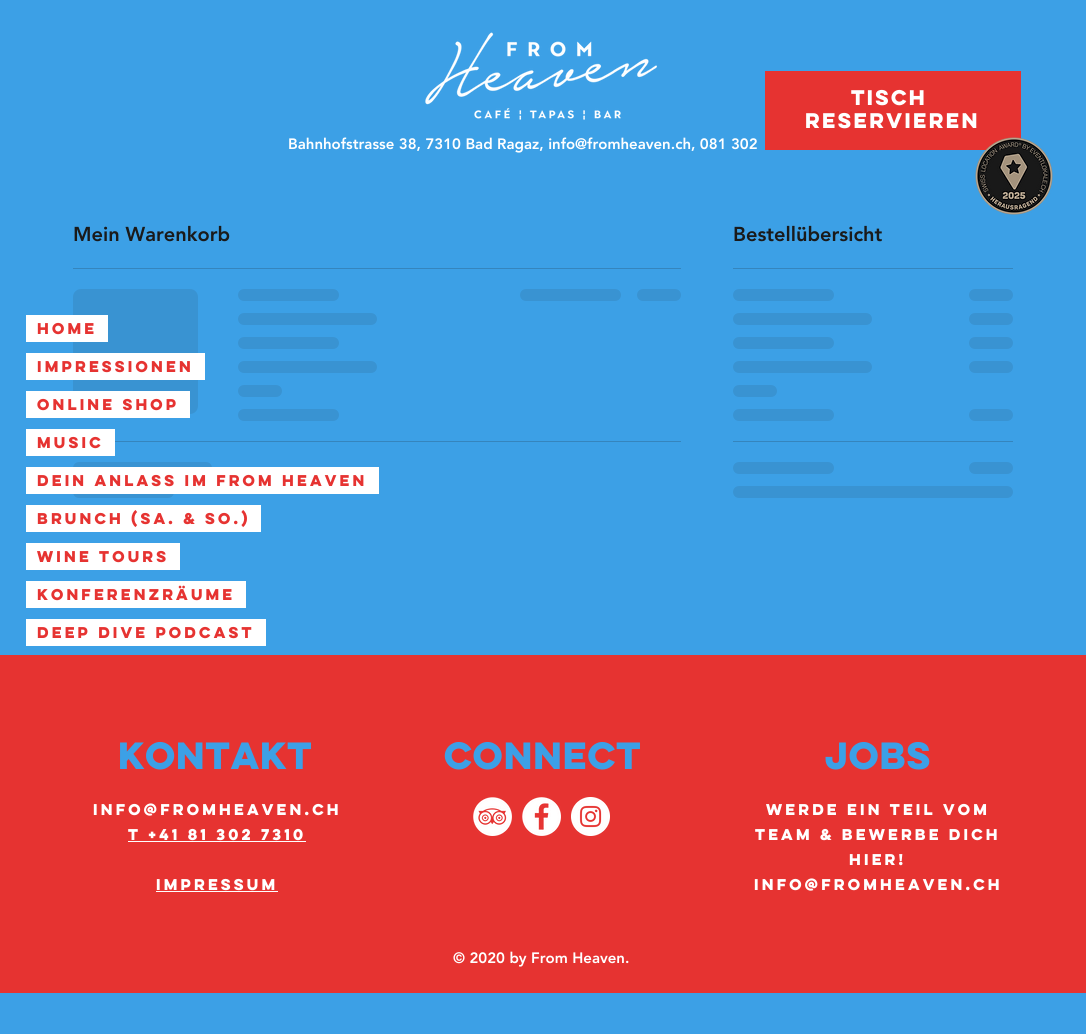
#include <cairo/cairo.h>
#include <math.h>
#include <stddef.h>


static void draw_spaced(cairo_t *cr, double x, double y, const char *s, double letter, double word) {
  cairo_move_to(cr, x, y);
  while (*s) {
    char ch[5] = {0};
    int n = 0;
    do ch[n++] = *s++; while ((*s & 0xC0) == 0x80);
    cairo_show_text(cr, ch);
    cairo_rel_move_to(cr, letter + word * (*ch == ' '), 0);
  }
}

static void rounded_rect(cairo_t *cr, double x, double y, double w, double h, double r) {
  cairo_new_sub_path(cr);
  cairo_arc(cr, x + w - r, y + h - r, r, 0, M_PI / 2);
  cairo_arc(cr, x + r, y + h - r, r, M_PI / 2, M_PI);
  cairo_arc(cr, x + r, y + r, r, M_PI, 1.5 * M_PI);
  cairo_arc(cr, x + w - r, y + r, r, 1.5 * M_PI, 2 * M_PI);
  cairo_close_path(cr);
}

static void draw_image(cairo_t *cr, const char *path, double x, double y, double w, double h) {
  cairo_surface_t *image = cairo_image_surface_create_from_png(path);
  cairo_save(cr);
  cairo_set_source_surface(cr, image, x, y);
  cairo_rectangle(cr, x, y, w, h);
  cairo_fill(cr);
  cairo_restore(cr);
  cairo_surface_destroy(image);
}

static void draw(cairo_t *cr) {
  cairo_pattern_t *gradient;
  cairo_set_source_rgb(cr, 60 / 255.0, 160 / 255.0, 230 / 255.0);
  cairo_paint(cr);
  cairo_set_source_rgb(cr, 230 / 255.0, 51 / 255.0, 49 / 255.0);
  cairo_rectangle(cr, 765, 71, 256, 79);
  cairo_fill(cr);
  draw_image(cr, "images/1.png", 975, 137, 78, 78);
  draw_image(cr, "images/2.png", 425, 32, 232, 88);
  cairo_set_source_rgb(cr, 53 / 255.0, 133 / 255.0, 189 / 255.0);
  cairo_rectangle(cr, 73, 268, 608, 1);
  cairo_fill(cr);
  gradient = cairo_pattern_create_linear(73, 352, 573, 352);
  cairo_pattern_add_color_stop_rgba(gradient, 0.25, 57 / 255.0, 147 / 255.0, 210 / 255.0, 1);
  cairo_pattern_add_color_stop_rgba(gradient, 0.37, 53 / 255.0, 133 / 255.0, 189 / 255.0, 1);
  cairo_pattern_add_color_stop_rgba(gradient, 0.63, 57 / 255.0, 147 / 255.0, 210 / 255.0, 1);
  cairo_set_source(cr, gradient);
  cairo_pattern_destroy(gradient);
  rounded_rect(cr, 73, 289, 125, 125, 8);
  cairo_fill(cr);
  gradient = cairo_pattern_create_linear(238, 295, 642, 295);
  cairo_pattern_add_color_stop_rgba(gradient, 0.25, 57 / 255.0, 147 / 255.0, 210 / 255.0, 1);
  cairo_pattern_add_color_stop_rgba(gradient, 0.37, 53 / 255.0, 133 / 255.0, 189 / 255.0, 1);
  cairo_pattern_add_color_stop_rgba(gradient, 0.63, 57 / 255.0, 147 / 255.0, 210 / 255.0, 1);
  cairo_set_source(cr, gradient);
  cairo_pattern_destroy(gradient);
  rounded_rect(cr, 238, 289, 101, 12, 6);
  cairo_fill(cr);
  gradient = cairo_pattern_create_linear(238, 319, 794, 319);
  cairo_pattern_add_color_stop_rgba(gradient, 0.25, 57 / 255.0, 147 / 255.0, 210 / 255.0, 1);
  cairo_pattern_add_color_stop_rgba(gradient, 0.37, 53 / 255.0, 133 / 255.0, 189 / 255.0, 1);
  cairo_pattern_add_color_stop_rgba(gradient, 0.63, 57 / 255.0, 147 / 255.0, 210 / 255.0, 1);
  cairo_set_source(cr, gradient);
  cairo_pattern_destroy(gradient);
  rounded_rect(cr, 238, 313, 139, 12, 6);
  cairo_fill(cr);
  gradient = cairo_pattern_create_linear(238, 343, 642, 343);
  cairo_pattern_add_color_stop_rgba(gradient, 0.25, 57 / 255.0, 147 / 255.0, 210 / 255.0, 1);
  cairo_pattern_add_color_stop_rgba(gradient, 0.37, 53 / 255.0, 133 / 255.0, 189 / 255.0, 1);
  cairo_pattern_add_color_stop_rgba(gradient, 0.63, 57 / 255.0, 147 / 255.0, 210 / 255.0, 1);
  cairo_set_source(cr, gradient);
  cairo_pattern_destroy(gradient);
  rounded_rect(cr, 238, 337, 101, 12, 6);
  cairo_fill(cr);
  gradient = cairo_pattern_create_linear(238, 367, 794, 367);
  cairo_pattern_add_color_stop_rgba(gradient, 0.25, 57 / 255.0, 147 / 255.0, 210 / 255.0, 1);
  cairo_pattern_add_color_stop_rgba(gradient, 0.37, 53 / 255.0, 133 / 255.0, 189 / 255.0, 1);
  cairo_pattern_add_color_stop_rgba(gradient, 0.63, 57 / 255.0, 147 / 255.0, 210 / 255.0, 1);
  cairo_set_source(cr, gradient);
  cairo_pattern_destroy(gradient);
  rounded_rect(cr, 238, 361, 139, 12, 6);
  cairo_fill(cr);
  gradient = cairo_pattern_create_linear(238, 391, 414, 391);
  cairo_pattern_add_color_stop_rgba(gradient, 0.25, 57 / 255.0, 147 / 255.0, 210 / 255.0, 1);
  cairo_pattern_add_color_stop_rgba(gradient, 0.37, 53 / 255.0, 133 / 255.0, 189 / 255.0, 1);
  cairo_pattern_add_color_stop_rgba(gradient, 0.63, 57 / 255.0, 147 / 255.0, 210 / 255.0, 1);
  cairo_set_source(cr, gradient);
  cairo_pattern_destroy(gradient);
  rounded_rect(cr, 238, 385, 44, 12, 6);
  cairo_fill(cr);
  gradient = cairo_pattern_create_linear(238, 415, 642, 415);
  cairo_pattern_add_color_stop_rgba(gradient, 0.25, 57 / 255.0, 147 / 255.0, 210 / 255.0, 1);
  cairo_pattern_add_color_stop_rgba(gradient, 0.37, 53 / 255.0, 133 / 255.0, 189 / 255.0, 1);
  cairo_pattern_add_color_stop_rgba(gradient, 0.63, 57 / 255.0, 147 / 255.0, 210 / 255.0, 1);
  cairo_set_source(cr, gradient);
  cairo_pattern_destroy(gradient);
  rounded_rect(cr, 238, 409, 101, 12, 6);
  cairo_fill(cr);
  gradient = cairo_pattern_create_linear(520, 295, 924, 295);
  cairo_pattern_add_color_stop_rgba(gradient, 0.25, 57 / 255.0, 147 / 255.0, 210 / 255.0, 1);
  cairo_pattern_add_color_stop_rgba(gradient, 0.37, 53 / 255.0, 133 / 255.0, 189 / 255.0, 1);
  cairo_pattern_add_color_stop_rgba(gradient, 0.63, 57 / 255.0, 147 / 255.0, 210 / 255.0, 1);
  cairo_set_source(cr, gradient);
  cairo_pattern_destroy(gradient);
  rounded_rect(cr, 520, 289, 101, 12, 6);
  cairo_fill(cr);
  gradient = cairo_pattern_create_linear(637, 295, 813, 295);
  cairo_pattern_add_color_stop_rgba(gradient, 0.25, 57 / 255.0, 147 / 255.0, 210 / 255.0, 1);
  cairo_pattern_add_color_stop_rgba(gradient, 0.37, 53 / 255.0, 133 / 255.0, 189 / 255.0, 1);
  cairo_pattern_add_color_stop_rgba(gradient, 0.63, 57 / 255.0, 147 / 255.0, 210 / 255.0, 1);
  cairo_set_source(cr, gradient);
  cairo_pattern_destroy(gradient);
  rounded_rect(cr, 637, 289, 44, 12, 6);
  cairo_fill(cr);
  cairo_set_source_rgb(cr, 53 / 255.0, 133 / 255.0, 189 / 255.0);
  cairo_rectangle(cr, 115, 441, 566, 1);
  cairo_fill(cr);
  gradient = cairo_pattern_create_linear(73, 468, 629, 468);
  cairo_pattern_add_color_stop_rgba(gradient, 0.25, 57 / 255.0, 147 / 255.0, 210 / 255.0, 1);
  cairo_pattern_add_color_stop_rgba(gradient, 0.37, 53 / 255.0, 133 / 255.0, 189 / 255.0, 1);
  cairo_pattern_add_color_stop_rgba(gradient, 0.63, 57 / 255.0, 147 / 255.0, 210 / 255.0, 1);
  cairo_set_source(cr, gradient);
  cairo_pattern_destroy(gradient);
  rounded_rect(cr, 73, 462, 139, 12, 6);
  cairo_fill(cr);
  gradient = cairo_pattern_create_linear(73, 492, 477, 492);
  cairo_pattern_add_color_stop_rgba(gradient, 0.25, 57 / 255.0, 147 / 255.0, 210 / 255.0, 1);
  cairo_pattern_add_color_stop_rgba(gradient, 0.37, 53 / 255.0, 133 / 255.0, 189 / 255.0, 1);
  cairo_pattern_add_color_stop_rgba(gradient, 0.63, 57 / 255.0, 147 / 255.0, 210 / 255.0, 1);
  cairo_set_source(cr, gradient);
  cairo_pattern_destroy(gradient);
  rounded_rect(cr, 73, 486, 101, 12, 6);
  cairo_fill(cr);
  cairo_set_source_rgb(cr, 53 / 255.0, 133 / 255.0, 189 / 255.0);
  cairo_rectangle(cr, 733, 268, 280, 1);
  cairo_fill(cr);
  gradient = cairo_pattern_create_linear(733, 295, 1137, 295);
  cairo_pattern_add_color_stop_rgba(gradient, 0.25, 57 / 255.0, 147 / 255.0, 210 / 255.0, 1);
  cairo_pattern_add_color_stop_rgba(gradient, 0.37, 53 / 255.0, 133 / 255.0, 189 / 255.0, 1);
  cairo_pattern_add_color_stop_rgba(gradient, 0.63, 57 / 255.0, 147 / 255.0, 210 / 255.0, 1);
  cairo_set_source(cr, gradient);
  cairo_pattern_destroy(gradient);
  rounded_rect(cr, 733, 289, 101, 12, 6);
  cairo_fill(cr);
  gradient = cairo_pattern_create_linear(969, 295, 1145, 295);
  cairo_pattern_add_color_stop_rgba(gradient, 0.25, 57 / 255.0, 147 / 255.0, 210 / 255.0, 1);
  cairo_pattern_add_color_stop_rgba(gradient, 0.37, 53 / 255.0, 133 / 255.0, 189 / 255.0, 1);
  cairo_pattern_add_color_stop_rgba(gradient, 0.63, 57 / 255.0, 147 / 255.0, 210 / 255.0, 1);
  cairo_set_source(cr, gradient);
  cairo_pattern_destroy(gradient);
  rounded_rect(cr, 969, 289, 44, 12, 6);
  cairo_fill(cr);
  gradient = cairo_pattern_create_linear(733, 319, 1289, 319);
  cairo_pattern_add_color_stop_rgba(gradient, 0.25, 57 / 255.0, 147 / 255.0, 210 / 255.0, 1);
  cairo_pattern_add_color_stop_rgba(gradient, 0.37, 53 / 255.0, 133 / 255.0, 189 / 255.0, 1);
  cairo_pattern_add_color_stop_rgba(gradient, 0.63, 57 / 255.0, 147 / 255.0, 210 / 255.0, 1);
  cairo_set_source(cr, gradient);
  cairo_pattern_destroy(gradient);
  rounded_rect(cr, 733, 313, 139, 12, 6);
  cairo_fill(cr);
  gradient = cairo_pattern_create_linear(969, 319, 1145, 319);
  cairo_pattern_add_color_stop_rgba(gradient, 0.25, 57 / 255.0, 147 / 255.0, 210 / 255.0, 1);
  cairo_pattern_add_color_stop_rgba(gradient, 0.37, 53 / 255.0, 133 / 255.0, 189 / 255.0, 1);
  cairo_pattern_add_color_stop_rgba(gradient, 0.63, 57 / 255.0, 147 / 255.0, 210 / 255.0, 1);
  cairo_set_source(cr, gradient);
  cairo_pattern_destroy(gradient);
  rounded_rect(cr, 969, 313, 44, 12, 6);
  cairo_fill(cr);
  gradient = cairo_pattern_create_linear(733, 343, 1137, 343);
  cairo_pattern_add_color_stop_rgba(gradient, 0.25, 57 / 255.0, 147 / 255.0, 210 / 255.0, 1);
  cairo_pattern_add_color_stop_rgba(gradient, 0.37, 53 / 255.0, 133 / 255.0, 189 / 255.0, 1);
  cairo_pattern_add_color_stop_rgba(gradient, 0.63, 57 / 255.0, 147 / 255.0, 210 / 255.0, 1);
  cairo_set_source(cr, gradient);
  cairo_pattern_destroy(gradient);
  rounded_rect(cr, 733, 337, 101, 12, 6);
  cairo_fill(cr);
  gradient = cairo_pattern_create_linear(969, 343, 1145, 343);
  cairo_pattern_add_color_stop_rgba(gradient, 0.25, 57 / 255.0, 147 / 255.0, 210 / 255.0, 1);
  cairo_pattern_add_color_stop_rgba(gradient, 0.37, 53 / 255.0, 133 / 255.0, 189 / 255.0, 1);
  cairo_pattern_add_color_stop_rgba(gradient, 0.63, 57 / 255.0, 147 / 255.0, 210 / 255.0, 1);
  cairo_set_source(cr, gradient);
  cairo_pattern_destroy(gradient);
  rounded_rect(cr, 969, 337, 44, 12, 6);
  cairo_fill(cr);
  gradient = cairo_pattern_create_linear(733, 367, 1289, 367);
  cairo_pattern_add_color_stop_rgba(gradient, 0.25, 57 / 255.0, 147 / 255.0, 210 / 255.0, 1);
  cairo_pattern_add_color_stop_rgba(gradient, 0.37, 53 / 255.0, 133 / 255.0, 189 / 255.0, 1);
  cairo_pattern_add_color_stop_rgba(gradient, 0.63, 57 / 255.0, 147 / 255.0, 210 / 255.0, 1);
  cairo_set_source(cr, gradient);
  cairo_pattern_destroy(gradient);
  rounded_rect(cr, 733, 361, 139, 12, 6);
  cairo_fill(cr);
  gradient = cairo_pattern_create_linear(969, 367, 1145, 367);
  cairo_pattern_add_color_stop_rgba(gradient, 0.25, 57 / 255.0, 147 / 255.0, 210 / 255.0, 1);
  cairo_pattern_add_color_stop_rgba(gradient, 0.37, 53 / 255.0, 133 / 255.0, 189 / 255.0, 1);
  cairo_pattern_add_color_stop_rgba(gradient, 0.63, 57 / 255.0, 147 / 255.0, 210 / 255.0, 1);
  cairo_set_source(cr, gradient);
  cairo_pattern_destroy(gradient);
  rounded_rect(cr, 969, 361, 44, 12, 6);
  cairo_fill(cr);
  gradient = cairo_pattern_create_linear(733, 391, 909, 391);
  cairo_pattern_add_color_stop_rgba(gradient, 0.25, 57 / 255.0, 147 / 255.0, 210 / 255.0, 1);
  cairo_pattern_add_color_stop_rgba(gradient, 0.37, 53 / 255.0, 133 / 255.0, 189 / 255.0, 1);
  cairo_pattern_add_color_stop_rgba(gradient, 0.63, 57 / 255.0, 147 / 255.0, 210 / 255.0, 1);
  cairo_set_source(cr, gradient);
  cairo_pattern_destroy(gradient);
  rounded_rect(cr, 733, 385, 44, 12, 6);
  cairo_fill(cr);
  gradient = cairo_pattern_create_linear(733, 415, 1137, 415);
  cairo_pattern_add_color_stop_rgba(gradient, 0.25, 57 / 255.0, 147 / 255.0, 210 / 255.0, 1);
  cairo_pattern_add_color_stop_rgba(gradient, 0.37, 53 / 255.0, 133 / 255.0, 189 / 255.0, 1);
  cairo_pattern_add_color_stop_rgba(gradient, 0.63, 57 / 255.0, 147 / 255.0, 210 / 255.0, 1);
  cairo_set_source(cr, gradient);
  cairo_pattern_destroy(gradient);
  rounded_rect(cr, 733, 409, 101, 12, 6);
  cairo_fill(cr);
  gradient = cairo_pattern_create_linear(969, 415, 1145, 415);
  cairo_pattern_add_color_stop_rgba(gradient, 0.25, 57 / 255.0, 147 / 255.0, 210 / 255.0, 1);
  cairo_pattern_add_color_stop_rgba(gradient, 0.37, 53 / 255.0, 133 / 255.0, 189 / 255.0, 1);
  cairo_pattern_add_color_stop_rgba(gradient, 0.63, 57 / 255.0, 147 / 255.0, 210 / 255.0, 1);
  cairo_set_source(cr, gradient);
  cairo_pattern_destroy(gradient);
  rounded_rect(cr, 969, 409, 44, 12, 6);
  cairo_fill(cr);
  cairo_set_source_rgb(cr, 53 / 255.0, 133 / 255.0, 189 / 255.0);
  cairo_rectangle(cr, 733, 441, 280, 1);
  cairo_fill(cr);
  gradient = cairo_pattern_create_linear(733, 468, 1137, 468);
  cairo_pattern_add_color_stop_rgba(gradient, 0.25, 57 / 255.0, 147 / 255.0, 210 / 255.0, 1);
  cairo_pattern_add_color_stop_rgba(gradient, 0.37, 53 / 255.0, 133 / 255.0, 189 / 255.0, 1);
  cairo_pattern_add_color_stop_rgba(gradient, 0.63, 57 / 255.0, 147 / 255.0, 210 / 255.0, 1);
  cairo_set_source(cr, gradient);
  cairo_pattern_destroy(gradient);
  rounded_rect(cr, 733, 462, 101, 12, 6);
  cairo_fill(cr);
  gradient = cairo_pattern_create_linear(969, 468, 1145, 468);
  cairo_pattern_add_color_stop_rgba(gradient, 0.25, 57 / 255.0, 147 / 255.0, 210 / 255.0, 1);
  cairo_pattern_add_color_stop_rgba(gradient, 0.37, 53 / 255.0, 133 / 255.0, 189 / 255.0, 1);
  cairo_pattern_add_color_stop_rgba(gradient, 0.63, 57 / 255.0, 147 / 255.0, 210 / 255.0, 1);
  cairo_set_source(cr, gradient);
  cairo_pattern_destroy(gradient);
  rounded_rect(cr, 969, 462, 44, 12, 6);
  cairo_fill(cr);
  gradient = cairo_pattern_create_linear(733, 492, 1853, 492);
  cairo_pattern_add_color_stop_rgba(gradient, 0.25, 57 / 255.0, 147 / 255.0, 210 / 255.0, 1);
  cairo_pattern_add_color_stop_rgba(gradient, 0.37, 53 / 255.0, 133 / 255.0, 189 / 255.0, 1);
  cairo_pattern_add_color_stop_rgba(gradient, 0.63, 57 / 255.0, 147 / 255.0, 210 / 255.0, 1);
  cairo_set_source(cr, gradient);
  cairo_pattern_destroy(gradient);
  rounded_rect(cr, 733, 486, 280, 12, 6);
  cairo_fill(cr);
  cairo_set_source_rgb(cr, 1, 1, 1);
  cairo_rectangle(cr, 26, 315, 82, 27);
  cairo_fill(cr);
  cairo_rectangle(cr, 26, 353, 179, 27);
  cairo_fill(cr);
  cairo_rectangle(cr, 26, 391, 164, 27);
  cairo_fill(cr);
  cairo_rectangle(cr, 26, 429, 89, 27);
  cairo_fill(cr);
  cairo_rectangle(cr, 26, 467, 353, 27);
  cairo_fill(cr);
  cairo_rectangle(cr, 26, 505, 235, 27);
  cairo_fill(cr);
  cairo_rectangle(cr, 26, 543, 154, 27);
  cairo_fill(cr);
  cairo_rectangle(cr, 26, 581, 220, 27);
  cairo_fill(cr);
  cairo_rectangle(cr, 26, 619, 240, 27);
  cairo_fill(cr);
  cairo_set_source_rgb(cr, 230 / 255.0, 51 / 255.0, 49 / 255.0);
  cairo_rectangle(cr, 0, 655, 1086, 338);
  cairo_fill(cr);
  cairo_set_source_rgb(cr, 1, 1, 1);
  cairo_rectangle(cr, 128, 841, 178, 1);
  cairo_fill(cr);
  cairo_rectangle(cr, 156, 891, 122, 1);
  cairo_fill(cr);
  draw_image(cr, "images/3.png", 473, 797, 39, 39);
  draw_image(cr, "images/4.png", 522, 797, 39, 39);
  draw_image(cr, "images/5.png", 571, 797, 39, 39);
  cairo_select_font_face(cr, "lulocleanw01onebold", CAIRO_FONT_SLANT_NORMAL, CAIRO_FONT_WEIGHT_BOLD);
  cairo_set_font_size(cr, 19);
  draw_spaced(cr, 851, 105, "Tisch", -2, 0);
  draw_spaced(cr, 805, 128, "reservieren", -1.9, 0);
  cairo_select_font_face(cr, "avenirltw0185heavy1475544 Black", CAIRO_FONT_SLANT_NORMAL, CAIRO_FONT_WEIGHT_NORMAL);
  cairo_set_font_size(cr, 15);
  cairo_move_to(cr, 288, 149);
  cairo_show_text(cr, "Bahnhofstrasse 38, 7310 Bad Ragaz, info@fromheaven.ch, 081 302");
  cairo_set_font_size(cr, 20);
  cairo_set_source_rgb(cr, 26 / 255.0, 26 / 255.0, 26 / 255.0);
  cairo_move_to(cr, 73, 241);
  cairo_show_text(cr, "Mein Warenkorb");
  cairo_move_to(cr, 733, 241);
  cairo_show_text(cr, "Bestellübersicht");
  cairo_select_font_face(cr, "lulocleanw01onebold", CAIRO_FONT_SLANT_NORMAL, CAIRO_FONT_WEIGHT_BOLD);
  cairo_set_font_size(cr, 14);
  cairo_set_source_rgb(cr, 230 / 255.0, 51 / 255.0, 49 / 255.0);
  cairo_move_to(cr, 37, 334);
  cairo_show_text(cr, "Home");
  cairo_move_to(cr, 37, 372);
  cairo_show_text(cr, "Impressionen");
  cairo_move_to(cr, 37, 410);
  cairo_show_text(cr, "Online Shop");
  cairo_move_to(cr, 37, 448);
  cairo_show_text(cr, "Music");
  cairo_move_to(cr, 37, 486);
  cairo_show_text(cr, "Dein Anlass im From Heaven");
  cairo_move_to(cr, 37, 524);
  cairo_show_text(cr, "Brunch (Sa. & So.)");
  cairo_move_to(cr, 37, 562);
  cairo_show_text(cr, "Wine Tours");
  cairo_move_to(cr, 37, 600);
  cairo_show_text(cr, "Konferenzräume");
  cairo_move_to(cr, 37, 638);
  cairo_show_text(cr, "Deep Dive Podcast");
  cairo_set_font_size(cr, 34);
  cairo_set_source_rgb(cr, 60 / 255.0, 160 / 255.0, 230 / 255.0);
  draw_spaced(cr, 118, 769, "Kontakt", -6.75, 0);
  draw_spaced(cr, 444, 769, "Connect", -6.75, 0);
  draw_spaced(cr, 825, 769, "JOBS", -6.75, 0);
  cairo_set_font_size(cr, 14);
  cairo_set_source_rgb(cr, 1, 1, 1);
  cairo_move_to(cr, 93, 815);
  cairo_show_text(cr, "info@fromheaven.ch");
  cairo_move_to(cr, 128, 840);
  cairo_show_text(cr, "T +41 81 302 7310");
  cairo_move_to(cr, 156, 890);
  cairo_show_text(cr, "IMpressum");
  cairo_move_to(cr, 766, 815);
  cairo_show_text(cr, "werde ein teil vom");
  cairo_move_to(cr, 755, 840);
  cairo_show_text(cr, "team & Bewerbe dich");
  cairo_move_to(cr, 849, 865);
  cairo_show_text(cr, "hier!");
  cairo_move_to(cr, 754, 890);
  cairo_show_text(cr, "info@fromheaven.ch");
  cairo_select_font_face(cr, "avenirltw0185heavy1475544 Black", CAIRO_FONT_SLANT_NORMAL, CAIRO_FONT_WEIGHT_NORMAL);
  cairo_set_font_size(cr, 15);
  cairo_move_to(cr, 453, 963);
  cairo_show_text(cr, "© 2020 by From Heaven.");
}

int main(void) {
  cairo_surface_t *surface = cairo_image_surface_create(CAIRO_FORMAT_RGB24, 1086, 1034);
  cairo_t *cr = cairo_create(surface);
  cairo_font_options_t *options = cairo_font_options_create();
  cairo_font_options_set_hint_metrics(options, CAIRO_HINT_METRICS_OFF);
  cairo_font_options_set_hint_style(options, CAIRO_HINT_STYLE_NONE);
  cairo_set_font_options(cr, options);
  cairo_set_miter_limit(cr, 4);
  draw(cr);
  cairo_surface_write_to_png(surface, "out.png");
  cairo_font_options_destroy(options);
  cairo_destroy(cr);
  cairo_surface_destroy(surface);
  return 0;
}
